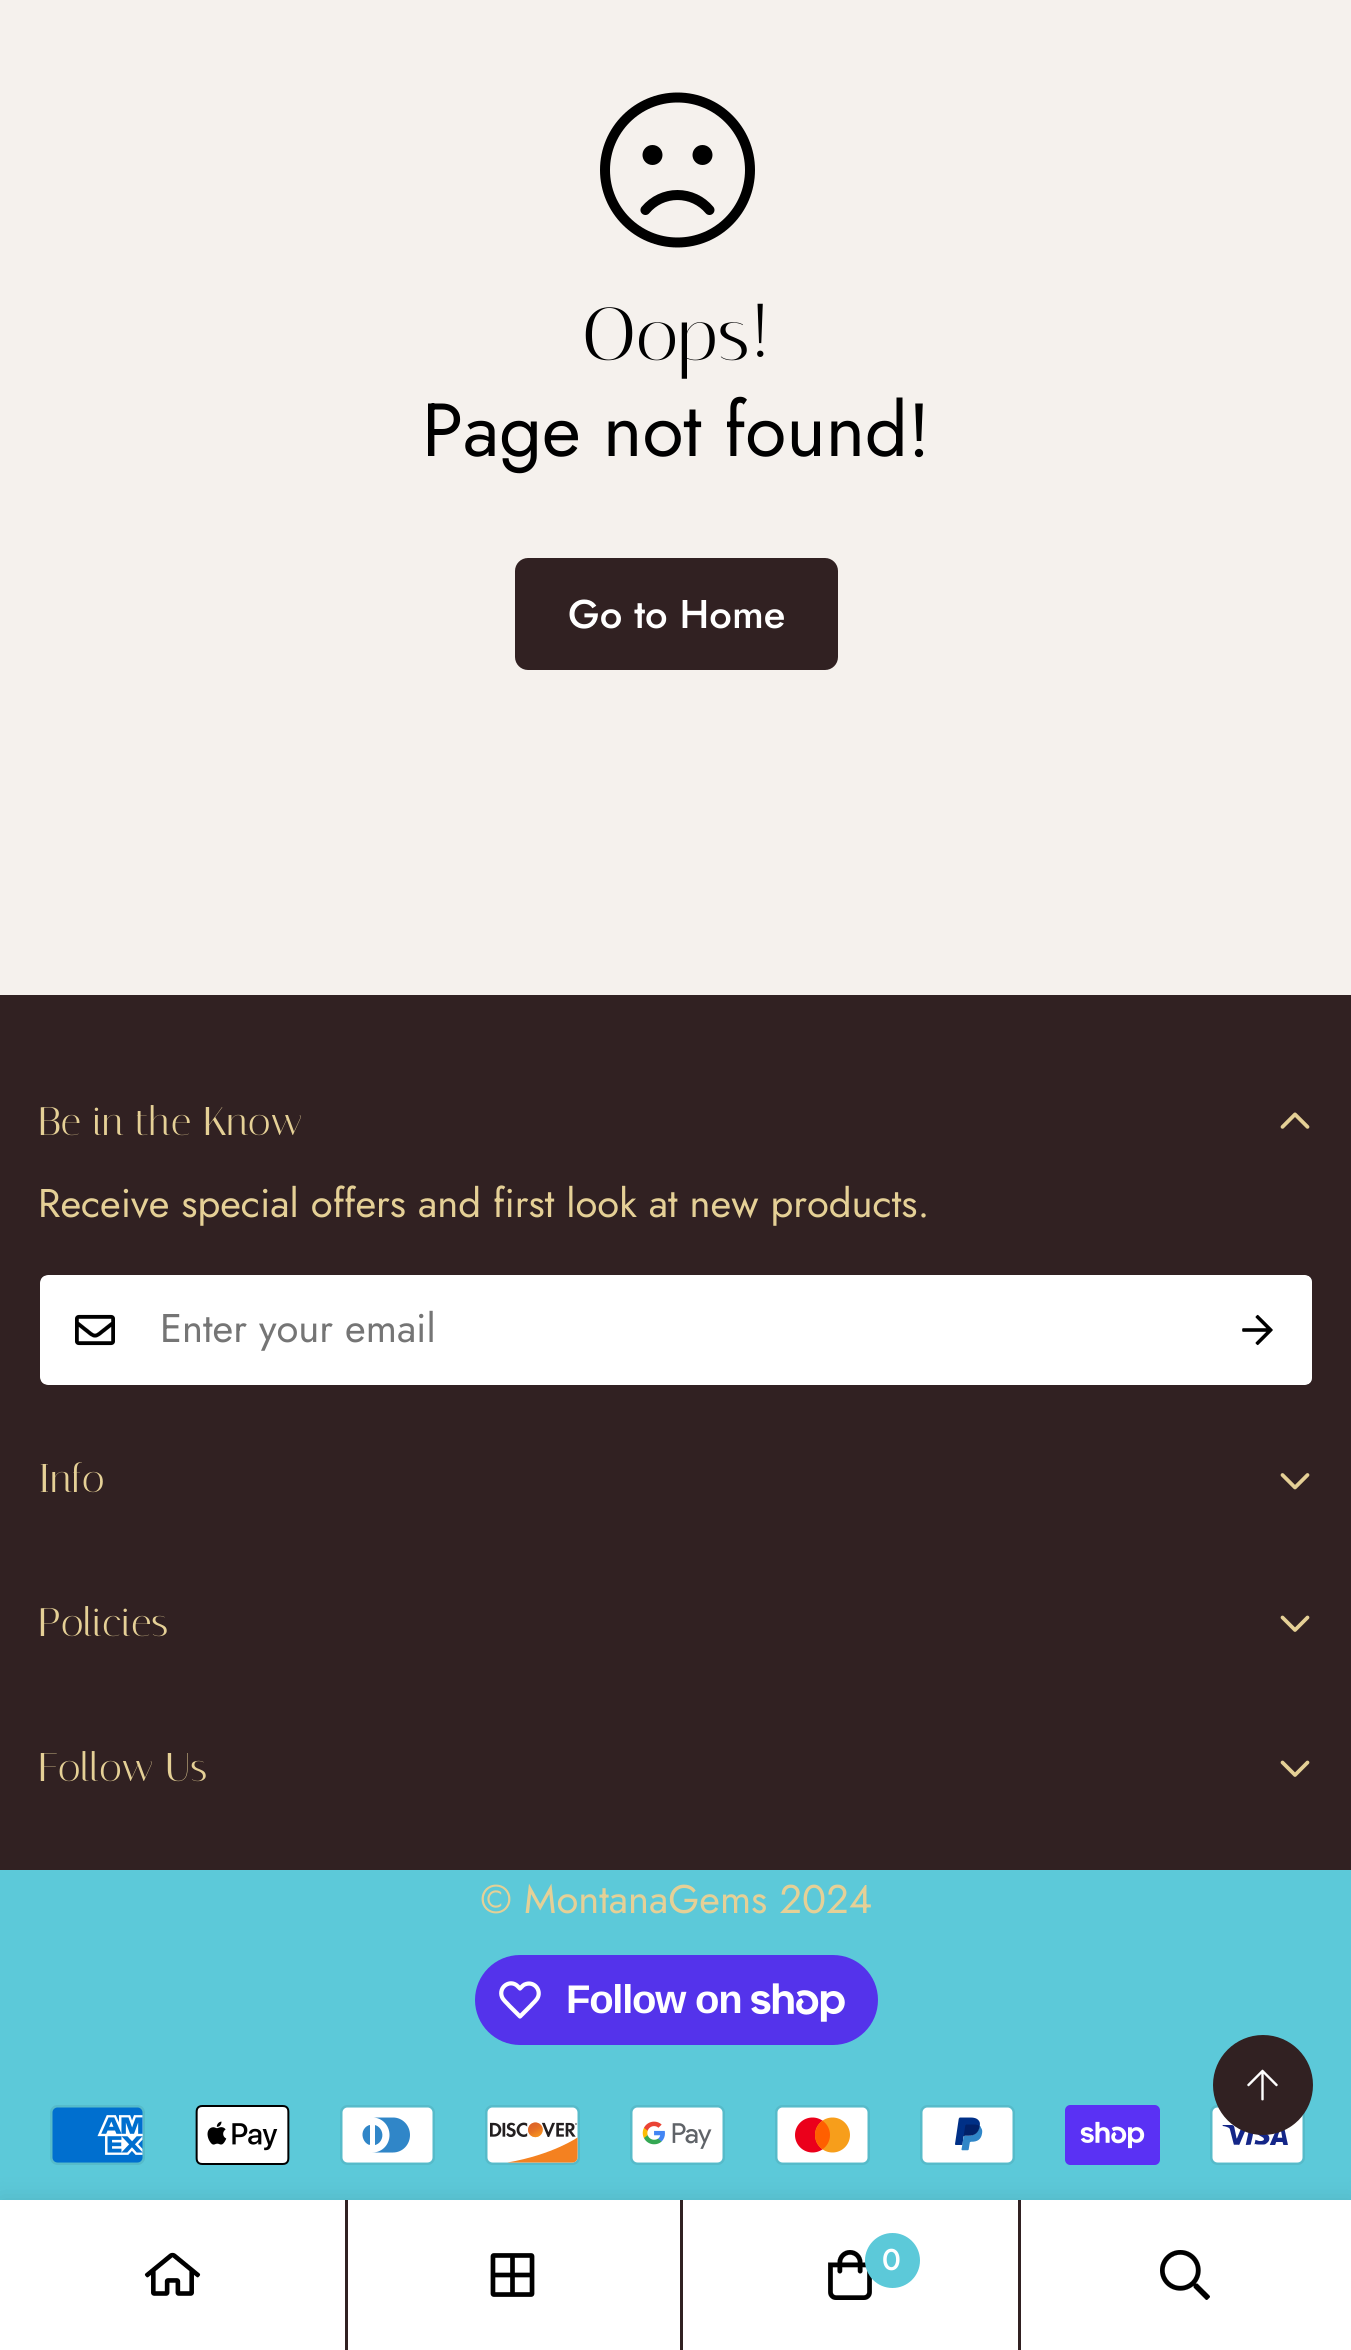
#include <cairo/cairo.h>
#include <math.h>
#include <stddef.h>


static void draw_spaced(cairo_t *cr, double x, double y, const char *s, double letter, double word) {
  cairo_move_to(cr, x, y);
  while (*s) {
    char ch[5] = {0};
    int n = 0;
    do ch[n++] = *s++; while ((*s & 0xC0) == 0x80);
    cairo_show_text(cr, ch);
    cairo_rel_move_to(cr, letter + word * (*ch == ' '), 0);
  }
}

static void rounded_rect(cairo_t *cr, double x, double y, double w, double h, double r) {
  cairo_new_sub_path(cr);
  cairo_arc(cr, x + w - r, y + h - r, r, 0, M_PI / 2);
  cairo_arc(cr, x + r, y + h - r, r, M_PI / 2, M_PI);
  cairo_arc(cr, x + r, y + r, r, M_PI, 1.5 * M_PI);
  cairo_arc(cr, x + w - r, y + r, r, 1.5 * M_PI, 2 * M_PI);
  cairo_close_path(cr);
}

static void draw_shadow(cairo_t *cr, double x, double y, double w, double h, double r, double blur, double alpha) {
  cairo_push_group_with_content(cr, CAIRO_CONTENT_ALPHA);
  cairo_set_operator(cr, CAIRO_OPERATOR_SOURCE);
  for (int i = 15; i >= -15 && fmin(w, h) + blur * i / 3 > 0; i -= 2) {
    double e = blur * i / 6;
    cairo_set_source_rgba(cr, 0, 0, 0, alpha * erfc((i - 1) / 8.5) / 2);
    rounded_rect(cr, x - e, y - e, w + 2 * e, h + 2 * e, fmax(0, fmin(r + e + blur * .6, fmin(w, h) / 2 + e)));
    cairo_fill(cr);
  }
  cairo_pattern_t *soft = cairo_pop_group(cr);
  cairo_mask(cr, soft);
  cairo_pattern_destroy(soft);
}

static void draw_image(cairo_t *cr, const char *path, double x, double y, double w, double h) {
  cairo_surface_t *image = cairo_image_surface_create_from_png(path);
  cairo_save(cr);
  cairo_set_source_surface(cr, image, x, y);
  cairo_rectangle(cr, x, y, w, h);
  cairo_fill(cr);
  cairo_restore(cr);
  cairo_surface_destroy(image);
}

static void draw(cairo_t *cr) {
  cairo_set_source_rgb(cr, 245 / 255.0, 241 / 255.0, 237 / 255.0);
  cairo_paint(cr);
  draw_image(cr, "images/1.png", 600, 92, 155, 156);
  cairo_set_source_rgb(cr, 49 / 255.0, 33 / 255.0, 34 / 255.0);
  rounded_rect(cr, 516.5, 559.5, 320, 109, 11.5);
  cairo_fill_preserve(cr);
  cairo_set_line_width(cr, 3);
  cairo_stroke(cr);
  cairo_rectangle(cr, 0, 995, 1351, 875);
  cairo_fill(cr);
  draw_image(cr, "images/2.png", 1280, 1112, 30, 17);
  cairo_set_source_rgb(cr, 1, 1, 1);
  cairo_new_path(cr);
  cairo_move_to(cr, 48, 1275);
  cairo_line_to(cr, 1203, 1275);
  cairo_line_to(cr, 1203, 1385);
  cairo_line_to(cr, 48, 1385);
  cairo_curve_to(cr, 43.5, 1385, 40, 1381.5, 40, 1377);
  cairo_line_to(cr, 40, 1283);
  cairo_curve_to(cr, 40, 1278.5, 43.5, 1275, 48, 1275);
  cairo_close_path(cr);
  cairo_fill(cr);
  cairo_set_source_rgb(cr, 49 / 255.0, 33 / 255.0, 34 / 255.0);
  cairo_set_fill_rule(cr, CAIRO_FILL_RULE_EVEN_ODD);
  cairo_new_path(cr);
  cairo_move_to(cr, 48, 1272);
  cairo_line_to(cr, 1202, 1272);
  cairo_line_to(cr, 1202, 1388);
  cairo_line_to(cr, 48, 1388);
  cairo_curve_to(cr, 42, 1388, 38, 1383, 38, 1378);
  cairo_line_to(cr, 38, 1282);
  cairo_curve_to(cr, 38, 1277, 42, 1272, 48, 1272);
  cairo_close_path(cr);
  cairo_move_to(cr, 48, 1275);
  cairo_line_to(cr, 1202, 1275);
  cairo_line_to(cr, 1202, 1385);
  cairo_line_to(cr, 48, 1385);
  cairo_curve_to(cr, 43, 1385, 40, 1382, 40, 1378);
  cairo_line_to(cr, 40, 1282);
  cairo_curve_to(cr, 40, 1278, 43, 1275, 48, 1275);
  cairo_close_path(cr);
  cairo_fill(cr);
  draw_image(cr, "images/3.png", 75, 1314, 40, 32);
  cairo_set_source_rgb(cr, 1, 1, 1);
  cairo_new_path(cr);
  cairo_move_to(cr, 1203, 1275);
  cairo_line_to(cr, 1305, 1275);
  cairo_curve_to(cr, 1309.5, 1275, 1313, 1278.5, 1313, 1283);
  cairo_line_to(cr, 1313, 1377);
  cairo_curve_to(cr, 1313, 1381.5, 1309.5, 1385, 1305, 1385);
  cairo_line_to(cr, 1203, 1385);
  cairo_close_path(cr);
  cairo_fill(cr);
  cairo_set_source_rgb(cr, 49 / 255.0, 33 / 255.0, 34 / 255.0);
  cairo_new_path(cr);
  cairo_move_to(cr, 1202, 1272);
  cairo_line_to(cr, 1305, 1272);
  cairo_curve_to(cr, 1311, 1272, 1315, 1277, 1315, 1282);
  cairo_line_to(cr, 1315, 1378);
  cairo_curve_to(cr, 1315, 1383, 1311, 1388, 1305, 1388);
  cairo_line_to(cr, 1202, 1388);
  cairo_close_path(cr);
  cairo_move_to(cr, 1202, 1275);
  cairo_line_to(cr, 1305, 1275);
  cairo_curve_to(cr, 1309, 1275, 1312, 1278, 1312, 1282);
  cairo_line_to(cr, 1312, 1378);
  cairo_curve_to(cr, 1312, 1382, 1309, 1385, 1305, 1385);
  cairo_line_to(cr, 1202, 1385);
  cairo_close_path(cr);
  cairo_fill(cr);
  draw_image(cr, "images/4.png", 1242, 1314, 31, 32);
  draw_image(cr, "images/5.png", 1280, 1473, 30, 17);
  draw_image(cr, "images/6.png", 1280, 1615, 30, 17);
  draw_image(cr, "images/6.png", 1280, 1760, 30, 17);
  cairo_set_source_rgb(cr, 92 / 255.0, 201 / 255.0, 217 / 255.0);
  cairo_rectangle(cr, 0, 1870, 1351, 330);
  cairo_fill(cr);
  cairo_set_source_rgb(cr, 84 / 255.0, 51 / 255.0, 235 / 255.0);
  rounded_rect(cr, 475, 1955, 403, 90, 45);
  cairo_fill(cr);
  cairo_new_path(cr);
  cairo_move_to(cr, 518, 1986.5);
  cairo_line_to(cr, 520, 1988.5);
  cairo_curve_to(cr, 522, 1986.5, 523.5, 1984.5, 526, 1984);
  cairo_curve_to(cr, 534, 1981.5, 541, 1989.5, 538, 1997);
  cairo_curve_to(cr, 536.5, 2000.5, 533, 2003, 530.5, 2006);
  cairo_line_to(cr, 520, 2016.5);
  cairo_line_to(cr, 509.5, 2006);
  cairo_curve_to(cr, 507, 2003, 503.5, 2000.5, 502, 1997);
  cairo_curve_to(cr, 498, 1987, 510.5, 1978.5, 518, 1986.5);
  cairo_close_path(cr);
  cairo_set_source_rgb(cr, 1, 1, 1);
  cairo_set_line_width(cr, 4.2);
  cairo_set_line_join(cr, CAIRO_LINE_JOIN_ROUND);
  cairo_stroke(cr);
  draw_image(cr, "images/7.png", 751, 1983, 94, 39);
  draw_image(cr, "images/8.png", 50, 2105, 95, 60);
  draw_image(cr, "images/9.png", 195, 2105, 95, 60);
  draw_image(cr, "images/10.png", 340, 2105, 95, 60);
  draw_image(cr, "images/11.png", 485, 2105, 95, 60);
  draw_image(cr, "images/12.png", 630, 2105, 95, 60);
  draw_image(cr, "images/13.png", 775, 2105, 95, 60);
  draw_image(cr, "images/14.png", 920, 2105, 95, 60);
  draw_image(cr, "images/15.png", 1065, 2105, 95, 60);
  draw_image(cr, "images/16.png", 1210, 2105, 95, 60);
  cairo_set_source_rgb(cr, 49 / 255.0, 33 / 255.0, 34 / 255.0);
  cairo_arc(cr, 1263, 2085, 48.5, 0, 2 * M_PI);
  cairo_fill_preserve(cr);
  cairo_set_line_width(cr, 3);
  cairo_set_line_join(cr, CAIRO_LINE_JOIN_MITER);
  cairo_stroke(cr);
  draw_image(cr, "images/17.png", 1247, 2069, 31, 32);
  cairo_set_source_rgb(cr, 0, 0, 0);
  draw_shadow(cr, 0, 2200, 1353, 150, 0, 12.5, 0.11);
  cairo_set_source_rgb(cr, 1, 1, 1);
  cairo_rectangle(cr, 0, 2200, 1351, 150);
  cairo_fill(cr);
  cairo_set_source_rgb(cr, 49 / 255.0, 33 / 255.0, 34 / 255.0);
  cairo_rectangle(cr, 345, 2200, 3, 150);
  cairo_fill(cr);
  draw_image(cr, "images/18.png", 144, 2252, 57, 44);
  cairo_rectangle(cr, 680, 2200, 3, 150);
  cairo_fill(cr);
  draw_image(cr, "images/19.png", 490, 2253, 45, 44);
  cairo_rectangle(cr, 1018, 2200, 3, 150);
  cairo_fill(cr);
  draw_image(cr, "images/20.png", 828, 2250, 44, 50);
  cairo_set_source_rgb(cr, 92 / 255.0, 201 / 255.0, 217 / 255.0);
  cairo_arc(cr, 892.5, 2260.5, 27.5, 0, 2 * M_PI);
  cairo_fill(cr);
  draw_image(cr, "images/21.png", 1160, 2250, 50, 50);
  cairo_select_font_face(cr, "Italiana", CAIRO_FONT_SLANT_NORMAL, CAIRO_FONT_WEIGHT_NORMAL);
  cairo_set_font_size(cr, 75);
  cairo_set_source_rgb(cr, 0, 0, 0);
  cairo_move_to(cr, 582, 360);
  cairo_show_text(cr, "Oops!");
  cairo_select_font_face(cr, "Jost", CAIRO_FONT_SLANT_NORMAL, CAIRO_FONT_WEIGHT_NORMAL);
  cairo_move_to(cr, 422, 456);
  cairo_show_text(cr, "Page not found!");
  cairo_select_font_face(cr, "Jost Medium", CAIRO_FONT_SLANT_NORMAL, CAIRO_FONT_WEIGHT_NORMAL);
  cairo_set_font_size(cr, 40);
  cairo_set_source_rgb(cr, 1, 1, 1);
  cairo_move_to(cr, 568, 628);
  cairo_show_text(cr, "Go to Home");
  cairo_select_font_face(cr, "Italiana", CAIRO_FONT_SLANT_NORMAL, CAIRO_FONT_WEIGHT_NORMAL);
  cairo_set_source_rgb(cr, 229 / 255.0, 208 / 255.0, 150 / 255.0);
  cairo_move_to(cr, 38, 1135);
  cairo_show_text(cr, "Be in the Know");
  cairo_select_font_face(cr, "Jost", CAIRO_FONT_SLANT_NORMAL, CAIRO_FONT_WEIGHT_NORMAL);
  cairo_move_to(cr, 38, 1217);
  cairo_show_text(cr, "Receive special offers and first look at new products.");
  cairo_set_source_rgb(cr, 117 / 255.0, 117 / 255.0, 117 / 255.0);
  cairo_move_to(cr, 160, 1342);
  cairo_show_text(cr, "Enter your email");
  cairo_select_font_face(cr, "Italiana", CAIRO_FONT_SLANT_NORMAL, CAIRO_FONT_WEIGHT_NORMAL);
  cairo_set_source_rgb(cr, 229 / 255.0, 208 / 255.0, 150 / 255.0);
  cairo_move_to(cr, 38, 1492);
  cairo_show_text(cr, "Info");
  cairo_move_to(cr, 38, 1636);
  cairo_show_text(cr, "Policies");
  cairo_move_to(cr, 38, 1781);
  cairo_show_text(cr, "Follow Us");
  cairo_select_font_face(cr, "Jost", CAIRO_FONT_SLANT_NORMAL, CAIRO_FONT_WEIGHT_NORMAL);
  cairo_move_to(cr, 480, 1913);
  cairo_show_text(cr, "© MontanaGems 2024");
  cairo_select_font_face(cr, "Liberation Sans", CAIRO_FONT_SLANT_NORMAL, CAIRO_FONT_WEIGHT_BOLD);
  cairo_set_source_rgb(cr, 1, 1, 1);
  draw_spaced(cr, 566, 2013, "Follow on", -1.25, 0);
  cairo_select_font_face(cr, "Jost Medium", CAIRO_FONT_SLANT_NORMAL, CAIRO_FONT_WEIGHT_NORMAL);
  cairo_set_font_size(cr, 30);
  cairo_move_to(cr, 882, 2270);
  cairo_show_text(cr, "0");
}

int main(void) {
  cairo_surface_t *surface = cairo_image_surface_create(CAIRO_FORMAT_RGB24, 1351, 2350);
  cairo_t *cr = cairo_create(surface);
  cairo_font_options_t *options = cairo_font_options_create();
  cairo_font_options_set_hint_metrics(options, CAIRO_HINT_METRICS_OFF);
  cairo_font_options_set_hint_style(options, CAIRO_HINT_STYLE_NONE);
  cairo_set_font_options(cr, options);
  cairo_set_miter_limit(cr, 4);
  draw(cr);
  cairo_surface_write_to_png(surface, "out.png");
  cairo_font_options_destroy(options);
  cairo_destroy(cr);
  cairo_surface_destroy(surface);
  return 0;
}
